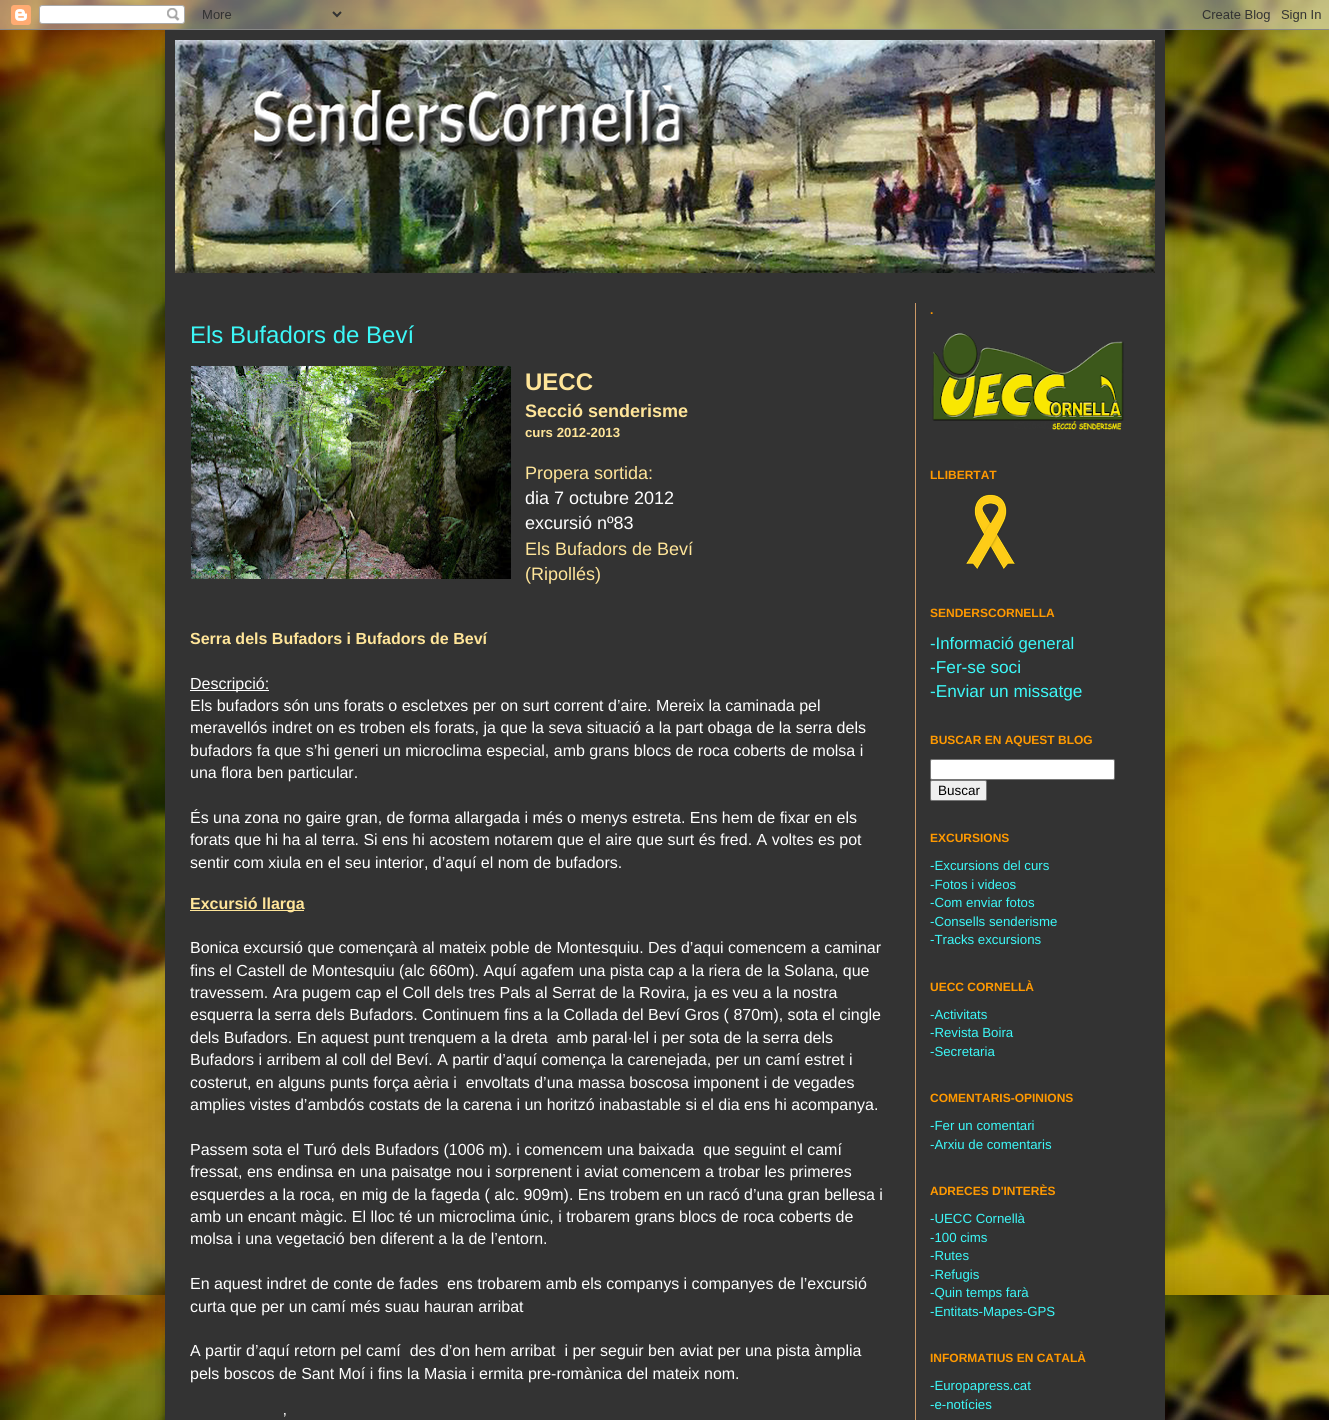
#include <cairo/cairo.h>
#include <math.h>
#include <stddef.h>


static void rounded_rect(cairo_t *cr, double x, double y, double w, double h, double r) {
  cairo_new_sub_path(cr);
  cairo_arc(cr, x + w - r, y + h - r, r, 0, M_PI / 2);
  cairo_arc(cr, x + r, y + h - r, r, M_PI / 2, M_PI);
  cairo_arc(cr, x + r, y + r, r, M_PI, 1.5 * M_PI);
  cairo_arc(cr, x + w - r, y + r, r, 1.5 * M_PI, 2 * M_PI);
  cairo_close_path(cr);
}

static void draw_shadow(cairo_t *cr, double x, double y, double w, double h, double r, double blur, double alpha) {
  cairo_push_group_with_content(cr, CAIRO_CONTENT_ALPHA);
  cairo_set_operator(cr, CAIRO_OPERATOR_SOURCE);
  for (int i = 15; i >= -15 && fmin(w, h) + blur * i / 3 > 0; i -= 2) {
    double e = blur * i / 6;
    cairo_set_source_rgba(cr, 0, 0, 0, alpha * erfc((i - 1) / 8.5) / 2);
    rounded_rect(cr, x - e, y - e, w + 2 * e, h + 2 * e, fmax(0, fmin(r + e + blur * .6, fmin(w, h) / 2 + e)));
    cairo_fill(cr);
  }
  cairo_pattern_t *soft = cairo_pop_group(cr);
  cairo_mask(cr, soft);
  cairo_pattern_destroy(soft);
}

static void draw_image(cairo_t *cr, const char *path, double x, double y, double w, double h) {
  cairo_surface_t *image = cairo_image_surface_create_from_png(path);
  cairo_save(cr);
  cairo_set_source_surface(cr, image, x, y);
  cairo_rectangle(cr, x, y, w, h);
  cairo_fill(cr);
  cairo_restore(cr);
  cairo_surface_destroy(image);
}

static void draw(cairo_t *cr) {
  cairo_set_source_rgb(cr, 1, 1, 1);
  cairo_paint(cr);
  draw_image(cr, "images/1.png", 0, 400, 1329, 1020);
  draw_image(cr, "images/2.png", 0, 0, 1329, 400);
  cairo_set_source_rgb(cr, 0, 0, 0);
  draw_shadow(cr, 165, 30, 1000, 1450, 0, 20, 0.15);
  draw_image(cr, "images/3.png", 0, 0, 1329, 30);
  cairo_set_source_rgb(cr, 51 / 255.0, 51 / 255.0, 51 / 255.0);
  cairo_rectangle(cr, 165, 30, 1000, 1390);
  cairo_fill(cr);
  draw_image(cr, "images/4.png", 175, 40, 980, 233);
  cairo_set_source_rgb(cr, 204 / 255.0, 153 / 255.0, 102 / 255.0);
  cairo_rectangle(cr, 915, 303, 1, 1117);
  cairo_fill(cr);
  draw_image(cr, "images/5.png", 191, 366, 320, 213);
  cairo_set_source_rgb(cr, 1, 1, 1);
  cairo_rectangle(cr, 190, 690, 79, 1);
  cairo_fill(cr);
  cairo_set_source_rgb(cr, 1, 229 / 255.0, 153 / 255.0);
  cairo_rectangle(cr, 190, 910, 114, 1);
  cairo_fill(cr);
  draw_image(cr, "images/6.png", 932, 333, 192, 97);
  draw_image(cr, "images/7.png", 966, 494, 49, 75);
  cairo_set_source_rgb(cr, 1, 1, 1);
  rounded_rect(cr, 930.5, 759.5, 184, 20, 1.5);
  cairo_fill_preserve(cr);
  cairo_set_source_rgb(cr, 118 / 255.0, 118 / 255.0, 118 / 255.0);
  cairo_set_line_width(cr, 1);
  cairo_stroke(cr);
  cairo_set_source_rgb(cr, 239 / 255.0, 239 / 255.0, 239 / 255.0);
  rounded_rect(cr, 930.5, 780.5, 56, 20, 1.5);
  cairo_fill_preserve(cr);
  cairo_set_source_rgb(cr, 118 / 255.0, 118 / 255.0, 118 / 255.0);
  cairo_stroke(cr);
  cairo_select_font_face(cr, "Liberation Sans", CAIRO_FONT_SLANT_NORMAL, CAIRO_FONT_WEIGHT_NORMAL);
  cairo_set_font_size(cr, 24);
  cairo_set_source_rgb(cr, 60 / 255.0, 248 / 255.0, 248 / 255.0);
  cairo_move_to(cr, 190, 343);
  cairo_show_text(cr, "Els Bufadors de Beví");
  cairo_select_font_face(cr, "Liberation Sans", CAIRO_FONT_SLANT_NORMAL, CAIRO_FONT_WEIGHT_BOLD);
  cairo_set_source_rgb(cr, 1, 229 / 255.0, 153 / 255.0);
  cairo_move_to(cr, 525, 390);
  cairo_show_text(cr, "UECC");
  cairo_set_font_size(cr, 18);
  cairo_move_to(cr, 525, 417);
  cairo_show_text(cr, "Secció senderisme");
  cairo_set_font_size(cr, 13.25);
  cairo_move_to(cr, 525, 437);
  cairo_show_text(cr, "curs 2012-2013");
  cairo_select_font_face(cr, "Liberation Sans", CAIRO_FONT_SLANT_NORMAL, CAIRO_FONT_WEIGHT_NORMAL);
  cairo_set_font_size(cr, 18);
  cairo_move_to(cr, 525, 479);
  cairo_show_text(cr, "Propera sortida:");
  cairo_set_source_rgb(cr, 1, 1, 1);
  cairo_move_to(cr, 525, 504);
  cairo_show_text(cr, "dia 7 octubre 2012");
  cairo_move_to(cr, 525, 529);
  cairo_show_text(cr, "excursió nº83");
  cairo_set_source_rgb(cr, 1, 229 / 255.0, 153 / 255.0);
  cairo_move_to(cr, 525, 555);
  cairo_show_text(cr, "Els Bufadors de Beví");
  cairo_move_to(cr, 525, 580);
  cairo_show_text(cr, "(Ripollés)");
  cairo_select_font_face(cr, "Liberation Sans", CAIRO_FONT_SLANT_NORMAL, CAIRO_FONT_WEIGHT_BOLD);
  cairo_set_font_size(cr, 16);
  cairo_move_to(cr, 190, 644);
  cairo_show_text(cr, "Serra dels Bufadors i Bufadors de Beví");
  cairo_select_font_face(cr, "Liberation Sans", CAIRO_FONT_SLANT_NORMAL, CAIRO_FONT_WEIGHT_NORMAL);
  cairo_set_source_rgb(cr, 1, 1, 1);
  cairo_move_to(cr, 190, 689);
  cairo_show_text(cr, "Descripció:");
  cairo_move_to(cr, 190, 711);
  cairo_show_text(cr, "Els bufadors són uns forats o escletxes per on surt corrent d’aire. Mereix la caminada pel");
  cairo_move_to(cr, 190, 733);
  cairo_show_text(cr, "meravellós indret on es troben els forats, ja que la seva situació a la part obaga de la serra dels");
  cairo_move_to(cr, 190, 756);
  cairo_show_text(cr, "bufadors fa que s’hi generi un microclima especial, amb grans blocs de roca coberts de molsa i");
  cairo_move_to(cr, 190, 778);
  cairo_show_text(cr, "una flora ben particular.");
  cairo_move_to(cr, 190, 823);
  cairo_show_text(cr, "És una zona no gaire gran, de forma allargada i més o menys estreta. Ens hem de fixar en els");
  cairo_move_to(cr, 190, 845);
  cairo_show_text(cr, "forats que hi ha al terra. Si ens hi acostem notarem que el aire que surt és fred. A voltes es pot");
  cairo_move_to(cr, 190, 868);
  cairo_show_text(cr, "sentir com xiula en el seu interior, d’aquí el nom de bufadors.");
  cairo_select_font_face(cr, "Liberation Sans", CAIRO_FONT_SLANT_NORMAL, CAIRO_FONT_WEIGHT_BOLD);
  cairo_set_source_rgb(cr, 1, 229 / 255.0, 153 / 255.0);
  cairo_move_to(cr, 190, 909);
  cairo_show_text(cr, "Excursió llarga");
  cairo_select_font_face(cr, "Liberation Sans", CAIRO_FONT_SLANT_NORMAL, CAIRO_FONT_WEIGHT_NORMAL);
  cairo_set_source_rgb(cr, 1, 1, 1);
  cairo_move_to(cr, 190, 953);
  cairo_show_text(cr, "Bonica excursió que començarà al mateix poble de Montesquiu. Des d’aqui comencem a caminar");
  cairo_move_to(cr, 190, 976);
  cairo_show_text(cr, "fins el Castell de Montesquiu (alc 660m). Aquí agafem una pista cap a la riera de la Solana, que");
  cairo_move_to(cr, 190, 998);
  cairo_show_text(cr, "travessem. Ara pugem cap el Coll dels tres Pals al Serrat de la Rovira, ja es veu a la nostra");
  cairo_move_to(cr, 190, 1020);
  cairo_show_text(cr, "esquerra la serra dels Bufadors. Continuem fins a la Collada del Beví Gros ( 870m), sota el cingle");
  cairo_move_to(cr, 190, 1043);
  cairo_show_text(cr, "dels Bufadors. En aquest punt trenquem a la dreta  amb paral·lel i per sota de la serra dels");
  cairo_move_to(cr, 190, 1065);
  cairo_show_text(cr, "Bufadors i arribem al coll del Beví. A partir d’aquí comença la carenejada, per un camí estret i");
  cairo_move_to(cr, 190, 1088);
  cairo_show_text(cr, "costerut, en alguns punts força aèria i  envoltats d’una massa boscosa imponent i de vegades");
  cairo_move_to(cr, 190, 1110);
  cairo_show_text(cr, "amplies vistes d’ambdós costats de la carena i un horitzó inabastable si el dia ens hi acompanya.");
  cairo_move_to(cr, 190, 1155);
  cairo_show_text(cr, "Passem sota el Turó dels Bufadors (1006 m). i comencem una baixada  que seguint el camí");
  cairo_move_to(cr, 190, 1177);
  cairo_show_text(cr, "fressat, ens endinsa en una paisatge nou i sorprenent i aviat comencem a trobar les primeres");
  cairo_move_to(cr, 190, 1200);
  cairo_show_text(cr, "esquerdes a la roca, en mig de la fageda ( alc. 909m). Ens trobem en un racó d’una gran bellesa i");
  cairo_move_to(cr, 190, 1222);
  cairo_show_text(cr, "amb un encant màgic. El lloc té un microclima únic, i trobarem grans blocs de roca coberts de");
  cairo_move_to(cr, 190, 1244);
  cairo_show_text(cr, "molsa i una vegetació ben diferent a la de l’entorn.");
  cairo_move_to(cr, 190, 1289);
  cairo_show_text(cr, "En aquest indret de conte de fades  ens trobarem amb els companys i companyes de l’excursió");
  cairo_move_to(cr, 190, 1312);
  cairo_show_text(cr, "curta que per un camí més suau hauran arribat");
  cairo_move_to(cr, 190, 1356);
  cairo_show_text(cr, "A partir d’aquí retorn pel camí  des d’on hem arribat  i per seguir ben aviat per una pista àmplia");
  cairo_move_to(cr, 190, 1379);
  cairo_show_text(cr, "pels boscos de Sant Moí i fins la Masia i ermita pre-romànica del mateix nom.");
  cairo_move_to(cr, 283, 1424);
  cairo_show_text(cr, "’");
  cairo_select_font_face(cr, "Liberation Sans", CAIRO_FONT_SLANT_NORMAL, CAIRO_FONT_WEIGHT_BOLD);
  cairo_set_font_size(cr, 12);
  cairo_set_source_rgb(cr, 1, 153 / 255.0, 0);
  cairo_move_to(cr, 930, 314);
  cairo_show_text(cr, ".");
  cairo_move_to(cr, 930, 479);
  cairo_show_text(cr, "LLIBERTAT");
  cairo_move_to(cr, 930, 617);
  cairo_show_text(cr, "SENDERSCORNELLA");
  cairo_select_font_face(cr, "Liberation Sans", CAIRO_FONT_SLANT_NORMAL, CAIRO_FONT_WEIGHT_NORMAL);
  cairo_set_font_size(cr, 16.75);
  cairo_set_source_rgb(cr, 60 / 255.0, 248 / 255.0, 248 / 255.0);
  cairo_move_to(cr, 930, 649);
  cairo_show_text(cr, "-Informació general");
  cairo_set_font_size(cr, 17.25);
  cairo_move_to(cr, 930, 673);
  cairo_show_text(cr, "-Fer-se soci");
  cairo_move_to(cr, 930, 697);
  cairo_show_text(cr, "-Enviar un missatge");
  cairo_select_font_face(cr, "Liberation Sans", CAIRO_FONT_SLANT_NORMAL, CAIRO_FONT_WEIGHT_BOLD);
  cairo_set_font_size(cr, 12);
  cairo_set_source_rgb(cr, 1, 153 / 255.0, 0);
  cairo_move_to(cr, 930, 744);
  cairo_show_text(cr, "BUSCAR EN AQUEST BLOG");
  cairo_select_font_face(cr, "Liberation Sans", CAIRO_FONT_SLANT_NORMAL, CAIRO_FONT_WEIGHT_NORMAL);
  cairo_set_font_size(cr, 13.5);
  cairo_set_source_rgb(cr, 0, 0, 0);
  cairo_move_to(cr, 938, 795);
  cairo_show_text(cr, "Buscar");
  cairo_select_font_face(cr, "Liberation Sans", CAIRO_FONT_SLANT_NORMAL, CAIRO_FONT_WEIGHT_BOLD);
  cairo_set_font_size(cr, 12);
  cairo_set_source_rgb(cr, 1, 153 / 255.0, 0);
  cairo_move_to(cr, 930, 842);
  cairo_show_text(cr, "EXCURSIONS");
  cairo_select_font_face(cr, "Liberation Sans", CAIRO_FONT_SLANT_NORMAL, CAIRO_FONT_WEIGHT_NORMAL);
  cairo_set_font_size(cr, 13.25);
  cairo_set_source_rgb(cr, 60 / 255.0, 248 / 255.0, 248 / 255.0);
  cairo_move_to(cr, 930, 870);
  cairo_show_text(cr, "-Excursions del curs");
  cairo_move_to(cr, 930, 889);
  cairo_show_text(cr, "-Fotos i videos");
  cairo_move_to(cr, 930, 907);
  cairo_show_text(cr, "-Com enviar fotos");
  cairo_move_to(cr, 930, 926);
  cairo_show_text(cr, "-Consells senderisme");
  cairo_move_to(cr, 930, 944);
  cairo_show_text(cr, "-Tracks excursions");
  cairo_select_font_face(cr, "Liberation Sans", CAIRO_FONT_SLANT_NORMAL, CAIRO_FONT_WEIGHT_BOLD);
  cairo_set_font_size(cr, 12);
  cairo_set_source_rgb(cr, 1, 153 / 255.0, 0);
  cairo_move_to(cr, 930, 991);
  cairo_show_text(cr, "UECC CORNELLÀ");
  cairo_select_font_face(cr, "Liberation Sans", CAIRO_FONT_SLANT_NORMAL, CAIRO_FONT_WEIGHT_NORMAL);
  cairo_set_font_size(cr, 13.25);
  cairo_set_source_rgb(cr, 60 / 255.0, 248 / 255.0, 248 / 255.0);
  cairo_move_to(cr, 930, 1019);
  cairo_show_text(cr, "-Activitats");
  cairo_move_to(cr, 930, 1037);
  cairo_show_text(cr, "-Revista Boira");
  cairo_move_to(cr, 930, 1056);
  cairo_show_text(cr, "-Secretaria");
  cairo_select_font_face(cr, "Liberation Sans", CAIRO_FONT_SLANT_NORMAL, CAIRO_FONT_WEIGHT_BOLD);
  cairo_set_font_size(cr, 12);
  cairo_set_source_rgb(cr, 1, 153 / 255.0, 0);
  cairo_move_to(cr, 930, 1102);
  cairo_show_text(cr, "COMENTARIS-OPINIONS");
  cairo_select_font_face(cr, "Liberation Sans", CAIRO_FONT_SLANT_NORMAL, CAIRO_FONT_WEIGHT_NORMAL);
  cairo_set_font_size(cr, 13.25);
  cairo_set_source_rgb(cr, 60 / 255.0, 248 / 255.0, 248 / 255.0);
  cairo_move_to(cr, 930, 1130);
  cairo_show_text(cr, "-Fer un comentari");
  cairo_move_to(cr, 930, 1149);
  cairo_show_text(cr, "-Arxiu de comentaris");
  cairo_select_font_face(cr, "Liberation Sans", CAIRO_FONT_SLANT_NORMAL, CAIRO_FONT_WEIGHT_BOLD);
  cairo_set_font_size(cr, 12);
  cairo_set_source_rgb(cr, 1, 153 / 255.0, 0);
  cairo_move_to(cr, 930, 1195);
  cairo_show_text(cr, "ADRECES D'INTERÈS");
  cairo_select_font_face(cr, "Liberation Sans", CAIRO_FONT_SLANT_NORMAL, CAIRO_FONT_WEIGHT_NORMAL);
  cairo_set_font_size(cr, 13.25);
  cairo_set_source_rgb(cr, 60 / 255.0, 248 / 255.0, 248 / 255.0);
  cairo_move_to(cr, 930, 1223);
  cairo_show_text(cr, "-UECC Cornellà");
  cairo_move_to(cr, 930, 1242);
  cairo_show_text(cr, "-100 cims");
  cairo_move_to(cr, 930, 1260);
  cairo_show_text(cr, "-Rutes");
  cairo_move_to(cr, 930, 1279);
  cairo_show_text(cr, "-Refugis");
  cairo_move_to(cr, 930, 1297);
  cairo_show_text(cr, "-Quin temps farà");
  cairo_move_to(cr, 930, 1316);
  cairo_show_text(cr, "-Entitats-Mapes-GPS");
  cairo_select_font_face(cr, "Liberation Sans", CAIRO_FONT_SLANT_NORMAL, CAIRO_FONT_WEIGHT_BOLD);
  cairo_set_font_size(cr, 12);
  cairo_set_source_rgb(cr, 1, 153 / 255.0, 0);
  cairo_move_to(cr, 930, 1362);
  cairo_show_text(cr, "INFORMATIUS EN CATALÀ");
  cairo_select_font_face(cr, "Liberation Sans", CAIRO_FONT_SLANT_NORMAL, CAIRO_FONT_WEIGHT_NORMAL);
  cairo_set_font_size(cr, 13.25);
  cairo_set_source_rgb(cr, 60 / 255.0, 248 / 255.0, 248 / 255.0);
  cairo_move_to(cr, 930, 1390);
  cairo_show_text(cr, "-Europapress.cat");
  cairo_move_to(cr, 930, 1409);
  cairo_show_text(cr, "-e-notícies");
}

int main(void) {
  cairo_surface_t *surface = cairo_image_surface_create(CAIRO_FORMAT_RGB24, 1329, 1420);
  cairo_t *cr = cairo_create(surface);
  cairo_font_options_t *options = cairo_font_options_create();
  cairo_font_options_set_hint_metrics(options, CAIRO_HINT_METRICS_OFF);
  cairo_font_options_set_hint_style(options, CAIRO_HINT_STYLE_NONE);
  cairo_set_font_options(cr, options);
  cairo_set_miter_limit(cr, 4);
  draw(cr);
  cairo_surface_write_to_png(surface, "out.png");
  cairo_font_options_destroy(options);
  cairo_destroy(cr);
  cairo_surface_destroy(surface);
  return 0;
}
